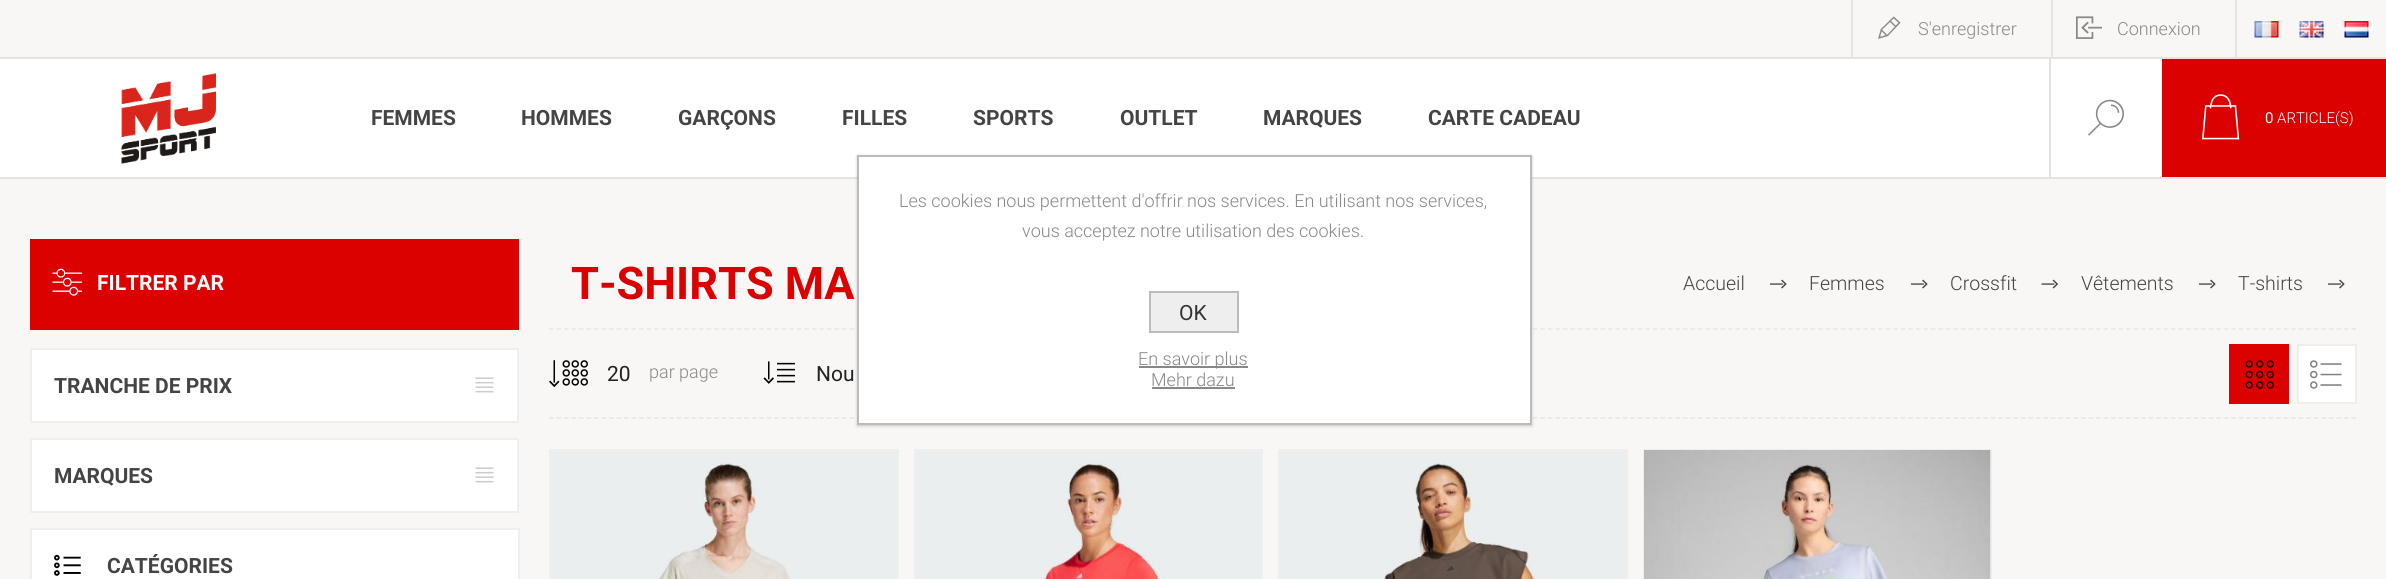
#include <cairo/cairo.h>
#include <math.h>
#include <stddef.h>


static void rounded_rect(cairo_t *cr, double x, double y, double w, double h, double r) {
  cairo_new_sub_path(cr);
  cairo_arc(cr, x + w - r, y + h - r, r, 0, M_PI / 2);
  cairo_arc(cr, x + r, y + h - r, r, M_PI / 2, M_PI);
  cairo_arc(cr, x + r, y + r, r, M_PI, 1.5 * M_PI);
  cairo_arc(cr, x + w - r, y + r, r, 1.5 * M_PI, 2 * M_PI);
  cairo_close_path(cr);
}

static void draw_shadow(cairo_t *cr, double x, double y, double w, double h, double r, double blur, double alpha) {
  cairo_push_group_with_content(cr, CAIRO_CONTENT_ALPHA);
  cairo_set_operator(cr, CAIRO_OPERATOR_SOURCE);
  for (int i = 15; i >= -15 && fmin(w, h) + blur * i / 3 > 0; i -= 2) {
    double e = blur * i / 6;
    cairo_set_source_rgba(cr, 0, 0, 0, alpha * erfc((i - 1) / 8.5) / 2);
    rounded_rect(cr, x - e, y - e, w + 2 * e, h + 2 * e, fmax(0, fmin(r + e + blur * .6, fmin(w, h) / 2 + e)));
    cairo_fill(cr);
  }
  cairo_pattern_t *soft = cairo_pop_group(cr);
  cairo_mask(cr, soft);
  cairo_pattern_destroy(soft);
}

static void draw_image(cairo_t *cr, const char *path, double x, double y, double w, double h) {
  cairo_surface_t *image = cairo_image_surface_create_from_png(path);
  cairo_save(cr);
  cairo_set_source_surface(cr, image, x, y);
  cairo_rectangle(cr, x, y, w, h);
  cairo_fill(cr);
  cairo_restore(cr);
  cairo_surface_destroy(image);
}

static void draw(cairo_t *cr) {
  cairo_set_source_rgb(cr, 249 / 255.0, 247 / 255.0, 246 / 255.0);
  cairo_paint(cr);
  cairo_set_source_rgb(cr, 227 / 255.0, 227 / 255.0, 227 / 255.0);
  cairo_rectangle(cr, 0, 57, 2386, 2);
  cairo_fill(cr);
  cairo_rectangle(cr, 1851, 0, 2, 57);
  cairo_fill(cr);
  draw_image(cr, "images/1.png", 1878, 16, 23, 23);
  cairo_rectangle(cr, 2051, 0, 2, 57);
  cairo_fill(cr);
  draw_image(cr, "images/2.png", 2076, 16, 26, 23);
  cairo_rectangle(cr, 2235, 0, 2, 57);
  cairo_fill(cr);
  draw_image(cr, "images/3.png", 2254, 21, 25, 17);
  draw_image(cr, "images/4.png", 2299, 21, 25, 17);
  draw_image(cr, "images/5.png", 2344, 21, 25, 17);
  cairo_set_source_rgb(cr, 1, 1, 1);
  cairo_rectangle(cr, 0, 59, 2049, 118);
  cairo_fill(cr);
  cairo_set_source_rgb(cr, 227 / 255.0, 227 / 255.0, 227 / 255.0);
  cairo_rectangle(cr, 0, 177, 2386, 2);
  cairo_fill(cr);
  draw_image(cr, "images/6.png", 121, 73, 95, 91);
  cairo_set_source_rgb(cr, 1, 1, 1);
  cairo_rectangle(cr, 2051, 59, 111, 118);
  cairo_fill(cr);
  cairo_set_source_rgb(cr, 227 / 255.0, 227 / 255.0, 227 / 255.0);
  cairo_rectangle(cr, 2049, 59, 2, 118);
  cairo_fill(cr);
  draw_image(cr, "images/7.png", 2088, 99, 36, 37);
  cairo_set_source_rgb(cr, 219 / 255.0, 1 / 255.0, 1 / 255.0);
  cairo_rectangle(cr, 2162, 59, 224, 118);
  cairo_fill(cr);
  draw_image(cr, "images/8.png", 2202, 94, 38, 46);
  cairo_rectangle(cr, 30, 239, 489, 91);
  cairo_fill(cr);
  draw_image(cr, "images/9.png", 52, 268, 31, 28);
  cairo_set_source_rgb(cr, 1, 1, 1);
  cairo_rectangle(cr, 31, 349, 487, 73);
  cairo_fill_preserve(cr);
  cairo_set_source_rgb(cr, 238 / 255.0, 238 / 255.0, 238 / 255.0);
  cairo_stroke(cr);
  draw_image(cr, "images/10.png", 475, 377, 19, 16);
  cairo_set_source_rgb(cr, 1, 1, 1);
  cairo_rectangle(cr, 31, 439, 487, 73);
  cairo_fill_preserve(cr);
  cairo_set_source_rgb(cr, 238 / 255.0, 238 / 255.0, 238 / 255.0);
  cairo_stroke(cr);
  draw_image(cr, "images/10.png", 475, 467, 19, 16);
  cairo_set_source_rgb(cr, 1, 1, 1);
  cairo_rectangle(cr, 32, 530, 486, 49);
  cairo_fill(cr);
  cairo_set_source_rgb(cr, 238 / 255.0, 238 / 255.0, 238 / 255.0);
  cairo_rectangle(cr, 30, 528, 489, 2);
  cairo_fill(cr);
  cairo_rectangle(cr, 518, 528, 2, 51);
  cairo_fill(cr);
  cairo_rectangle(cr, 30, 528, 2, 51);
  cairo_fill(cr);
  draw_image(cr, "images/11.png", 54, 554, 27, 22);
  cairo_new_path(cr);
  cairo_move_to(cr, 549, 329);
  cairo_line_to(cr, 2356.5, 329);
  cairo_set_source_rgb(cr, 230 / 255.0, 230 / 255.0, 230 / 255.0);
  cairo_set_line_width(cr, 1.5);
  cairo_set_dash(cr, (double[]){4.5, 3.01}, 2, 0);
  cairo_stroke(cr);
  draw_image(cr, "images/12.png", 1770, 279, 17, 10);
  draw_image(cr, "images/12.png", 1911, 279, 17, 10);
  draw_image(cr, "images/13.png", 2041, 279, 18, 10);
  draw_image(cr, "images/12.png", 2199, 279, 17, 10);
  draw_image(cr, "images/12.png", 2328, 279, 17, 10);
  cairo_new_path(cr);
  cairo_move_to(cr, 549, 418);
  cairo_line_to(cr, 2356.5, 418);
  cairo_stroke(cr);
  draw_image(cr, "images/14.png", 549, 360, 39, 28);
  draw_image(cr, "images/15.png", 763, 361, 32, 23);
  cairo_set_source_rgb(cr, 219 / 255.0, 1 / 255.0, 1 / 255.0);
  cairo_rectangle(cr, 2229, 344, 60, 60);
  cairo_fill(cr);
  draw_image(cr, "images/16.png", 2245, 360, 29, 29);
  cairo_set_source_rgb(cr, 1, 1, 1);
  cairo_rectangle(cr, 2298, 345, 58, 58);
  cairo_fill_preserve(cr);
  cairo_set_source_rgb(cr, 238 / 255.0, 238 / 255.0, 238 / 255.0);
  cairo_set_line_width(cr, 2);
  cairo_set_dash(cr, NULL, 0, 0);
  cairo_stroke(cr);
  draw_image(cr, "images/17.png", 2310, 360, 32, 29);
  cairo_rectangle(cr, 550, 450, 348, 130);
  cairo_stroke(cr);
  draw_image(cr, "images/18.png", 551, 451, 346, 128);
  cairo_rectangle(cr, 915, 450, 347, 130);
  cairo_stroke(cr);
  draw_image(cr, "images/19.png", 916, 451, 345, 128);
  cairo_rectangle(cr, 1279, 450, 348, 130);
  cairo_stroke(cr);
  draw_image(cr, "images/20.png", 1280, 451, 346, 128);
  cairo_rectangle(cr, 1644, 450, 347, 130);
  cairo_stroke(cr);
  draw_image(cr, "images/21.png", 1644, 450, 347, 129);
  cairo_set_source_rgb(cr, 0, 0, 0);
  draw_shadow(cr, 857, 156, 675, 270, 0, 1.5, 0.2);
  cairo_set_source_rgb(cr, 1, 1, 1);
  cairo_rectangle(cr, 858, 156, 673, 268);
  cairo_fill_preserve(cr);
  cairo_set_source_rgb(cr, 187 / 255.0, 187 / 255.0, 187 / 255.0);
  cairo_stroke(cr);
  cairo_set_source_rgb(cr, 238 / 255.0, 238 / 255.0, 238 / 255.0);
  cairo_rectangle(cr, 1150, 292, 88, 40);
  cairo_fill_preserve(cr);
  cairo_set_source_rgb(cr, 187 / 255.0, 187 / 255.0, 187 / 255.0);
  cairo_stroke(cr);
  cairo_set_source_rgb(cr, 136 / 255.0, 136 / 255.0, 136 / 255.0);
  cairo_rectangle(cr, 1139, 366, 109, 2);
  cairo_fill(cr);
  cairo_rectangle(cr, 1152, 387, 83, 2);
  cairo_fill(cr);
  cairo_select_font_face(cr, "Roboto Light", CAIRO_FONT_SLANT_NORMAL, CAIRO_FONT_WEIGHT_NORMAL);
  cairo_set_font_size(cr, 18);
  cairo_move_to(cr, 1918, 35);
  cairo_show_text(cr, "S'enregistrer");
  cairo_move_to(cr, 2117, 35);
  cairo_show_text(cr, "Connexion");
  cairo_select_font_face(cr, "Roboto", CAIRO_FONT_SLANT_NORMAL, CAIRO_FONT_WEIGHT_BOLD);
  cairo_set_font_size(cr, 21);
  cairo_set_source_rgb(cr, 68 / 255.0, 68 / 255.0, 68 / 255.0);
  cairo_move_to(cr, 371, 125);
  cairo_show_text(cr, "FEMMES");
  cairo_move_to(cr, 521, 125);
  cairo_show_text(cr, "HOMMES");
  cairo_move_to(cr, 678, 125);
  cairo_show_text(cr, "GARÇONS");
  cairo_move_to(cr, 842, 125);
  cairo_show_text(cr, "FILLES");
  cairo_move_to(cr, 973, 125);
  cairo_show_text(cr, "SPORTS");
  cairo_move_to(cr, 1120, 125);
  cairo_show_text(cr, "OUTLET");
  cairo_move_to(cr, 1263, 125);
  cairo_show_text(cr, "MARQUES");
  cairo_move_to(cr, 1428, 125);
  cairo_show_text(cr, "CARTE CADEAU");
  cairo_select_font_face(cr, "Roboto", CAIRO_FONT_SLANT_NORMAL, CAIRO_FONT_WEIGHT_NORMAL);
  cairo_set_font_size(cr, 15);
  cairo_set_source_rgb(cr, 1, 1, 1);
  cairo_move_to(cr, 2265, 123);
  cairo_show_text(cr, "0");
  cairo_select_font_face(cr, "Roboto Light", CAIRO_FONT_SLANT_NORMAL, CAIRO_FONT_WEIGHT_NORMAL);
  cairo_move_to(cr, 2277, 123);
  cairo_show_text(cr, "ARTICLE(S)");
  cairo_select_font_face(cr, "Roboto", CAIRO_FONT_SLANT_NORMAL, CAIRO_FONT_WEIGHT_BOLD);
  cairo_set_font_size(cr, 21);
  cairo_move_to(cr, 97, 290);
  cairo_show_text(cr, "FILTRER PAR");
  cairo_set_source_rgb(cr, 68 / 255.0, 68 / 255.0, 68 / 255.0);
  cairo_move_to(cr, 54, 393);
  cairo_show_text(cr, "TRANCHE DE PRIX");
  cairo_move_to(cr, 54, 483);
  cairo_show_text(cr, "MARQUES");
  cairo_move_to(cr, 107, 573);
  cairo_show_text(cr, "CATÉGORIES");
  cairo_set_font_size(cr, 45);
  cairo_set_source_rgb(cr, 219 / 255.0, 1 / 255.0, 1 / 255.0);
  cairo_move_to(cr, 571, 299);
  cairo_show_text(cr, "T-SHIRTS MA");
  cairo_select_font_face(cr, "Roboto Light", CAIRO_FONT_SLANT_NORMAL, CAIRO_FONT_WEIGHT_NORMAL);
  cairo_set_font_size(cr, 19.5);
  cairo_set_source_rgb(cr, 68 / 255.0, 68 / 255.0, 68 / 255.0);
  cairo_move_to(cr, 1683, 290);
  cairo_show_text(cr, "Accueil");
  cairo_move_to(cr, 1809, 290);
  cairo_show_text(cr, "Femmes");
  cairo_move_to(cr, 1950, 290);
  cairo_show_text(cr, "Crossfit");
  cairo_move_to(cr, 2081, 290);
  cairo_show_text(cr, "Vêtements");
  cairo_move_to(cr, 2238, 290);
  cairo_show_text(cr, "T-shirts");
  cairo_select_font_face(cr, "Roboto", CAIRO_FONT_SLANT_NORMAL, CAIRO_FONT_WEIGHT_NORMAL);
  cairo_set_font_size(cr, 21);
  cairo_set_source_rgb(cr, 34 / 255.0, 34 / 255.0, 34 / 255.0);
  cairo_move_to(cr, 607, 381);
  cairo_show_text(cr, "20");
  cairo_select_font_face(cr, "Roboto Light", CAIRO_FONT_SLANT_NORMAL, CAIRO_FONT_WEIGHT_NORMAL);
  cairo_set_font_size(cr, 18);
  cairo_set_source_rgb(cr, 136 / 255.0, 136 / 255.0, 136 / 255.0);
  cairo_move_to(cr, 649, 378);
  cairo_show_text(cr, "par page");
  cairo_select_font_face(cr, "Roboto", CAIRO_FONT_SLANT_NORMAL, CAIRO_FONT_WEIGHT_NORMAL);
  cairo_set_font_size(cr, 21);
  cairo_set_source_rgb(cr, 34 / 255.0, 34 / 255.0, 34 / 255.0);
  cairo_move_to(cr, 816, 381);
  cairo_show_text(cr, "Nou");
  cairo_select_font_face(cr, "Roboto Light", CAIRO_FONT_SLANT_NORMAL, CAIRO_FONT_WEIGHT_NORMAL);
  cairo_set_font_size(cr, 18);
  cairo_set_source_rgb(cr, 136 / 255.0, 136 / 255.0, 136 / 255.0);
  cairo_move_to(cr, 899, 207);
  cairo_show_text(cr, "Les cookies nous permettent d'offrir nos services. En utilisant nos services,");
  cairo_move_to(cr, 1022, 237);
  cairo_show_text(cr, "vous acceptez notre utilisation des cookies.");
  cairo_select_font_face(cr, "Roboto", CAIRO_FONT_SLANT_NORMAL, CAIRO_FONT_WEIGHT_NORMAL);
  cairo_set_font_size(cr, 21);
  cairo_set_source_rgb(cr, 51 / 255.0, 51 / 255.0, 51 / 255.0);
  cairo_move_to(cr, 1179, 320);
  cairo_show_text(cr, "OK");
  cairo_select_font_face(cr, "Roboto Light", CAIRO_FONT_SLANT_NORMAL, CAIRO_FONT_WEIGHT_NORMAL);
  cairo_set_font_size(cr, 18);
  cairo_set_source_rgb(cr, 136 / 255.0, 136 / 255.0, 136 / 255.0);
  cairo_move_to(cr, 1138, 365);
  cairo_show_text(cr, "En savoir plus");
  cairo_move_to(cr, 1151, 386);
  cairo_show_text(cr, "Mehr dazu");
}

int main(void) {
  cairo_surface_t *surface = cairo_image_surface_create(CAIRO_FORMAT_RGB24, 2386, 579);
  cairo_t *cr = cairo_create(surface);
  cairo_font_options_t *options = cairo_font_options_create();
  cairo_font_options_set_hint_metrics(options, CAIRO_HINT_METRICS_OFF);
  cairo_font_options_set_hint_style(options, CAIRO_HINT_STYLE_NONE);
  cairo_set_font_options(cr, options);
  cairo_set_miter_limit(cr, 4);
  draw(cr);
  cairo_surface_write_to_png(surface, "out.png");
  cairo_font_options_destroy(options);
  cairo_destroy(cr);
  cairo_surface_destroy(surface);
  return 0;
}
